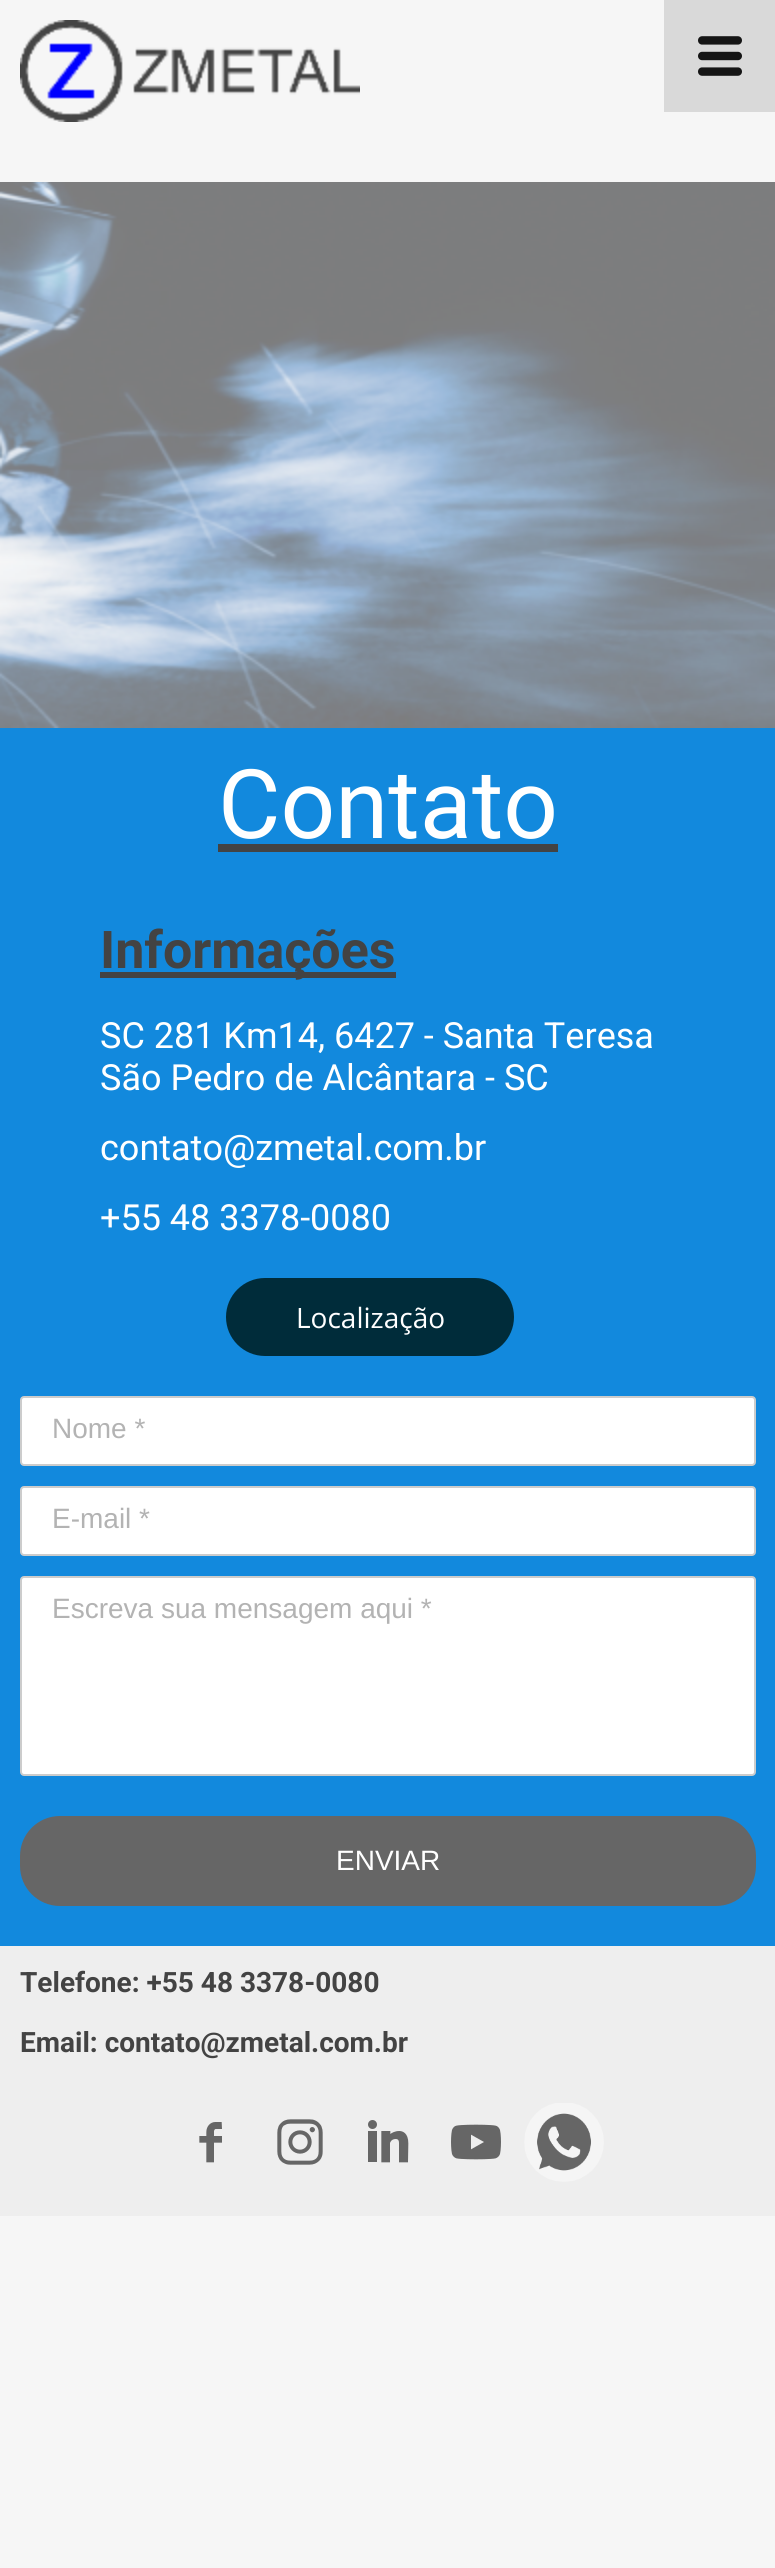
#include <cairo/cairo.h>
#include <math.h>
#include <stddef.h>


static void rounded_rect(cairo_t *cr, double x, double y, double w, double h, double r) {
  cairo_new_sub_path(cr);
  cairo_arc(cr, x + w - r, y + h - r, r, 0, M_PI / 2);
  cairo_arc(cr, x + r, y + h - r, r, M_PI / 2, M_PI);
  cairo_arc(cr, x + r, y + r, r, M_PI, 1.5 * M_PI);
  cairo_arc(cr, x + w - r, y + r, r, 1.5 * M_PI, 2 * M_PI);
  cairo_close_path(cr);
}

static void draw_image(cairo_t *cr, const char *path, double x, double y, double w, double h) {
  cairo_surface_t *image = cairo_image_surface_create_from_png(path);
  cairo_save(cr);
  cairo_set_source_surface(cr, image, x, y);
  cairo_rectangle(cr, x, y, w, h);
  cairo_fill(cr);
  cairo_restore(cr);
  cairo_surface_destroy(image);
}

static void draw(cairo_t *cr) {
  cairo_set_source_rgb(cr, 246 / 255.0, 246 / 255.0, 246 / 255.0);
  cairo_paint(cr);
  draw_image(cr, "images/1.png", 20, 20, 340, 102);
  cairo_set_source_rgb(cr, 217 / 255.0, 217 / 255.0, 217 / 255.0);
  cairo_rectangle(cr, 664, 0, 111, 112);
  cairo_fill(cr);
  draw_image(cr, "images/2.png", 698, 36, 44, 40);
  draw_image(cr, "images/3.png", 0, 182, 775, 546);
  cairo_set_source_rgb(cr, 18 / 255.0, 137 / 255.0, 221 / 255.0);
  cairo_rectangle(cr, 0, 728, 775, 1218);
  cairo_fill(cr);
  cairo_set_source_rgb(cr, 67 / 255.0, 67 / 255.0, 67 / 255.0);
  cairo_rectangle(cr, 218, 844, 340, 8);
  cairo_fill(cr);
  cairo_rectangle(cr, 100, 972, 296, 6);
  cairo_fill(cr);
  cairo_set_source_rgb(cr, 0, 44 / 255.0, 58 / 255.0);
  rounded_rect(cr, 226, 1278, 288, 78, 39);
  cairo_fill(cr);
  cairo_set_source_rgb(cr, 1, 1, 1);
  rounded_rect(cr, 21, 1397, 734, 68, 3);
  cairo_fill_preserve(cr);
  cairo_set_source_rgb(cr, 204 / 255.0, 204 / 255.0, 204 / 255.0);
  cairo_stroke(cr);
  cairo_set_source_rgb(cr, 1, 1, 1);
  rounded_rect(cr, 21, 1487, 734, 68, 3);
  cairo_fill_preserve(cr);
  cairo_set_source_rgb(cr, 204 / 255.0, 204 / 255.0, 204 / 255.0);
  cairo_stroke(cr);
  cairo_set_source_rgb(cr, 1, 1, 1);
  rounded_rect(cr, 21, 1577, 734, 198, 3);
  cairo_fill_preserve(cr);
  cairo_set_source_rgb(cr, 204 / 255.0, 204 / 255.0, 204 / 255.0);
  cairo_stroke(cr);
  cairo_set_source_rgb(cr, 102 / 255.0, 102 / 255.0, 102 / 255.0);
  rounded_rect(cr, 20, 1816, 736, 90, 40);
  cairo_fill(cr);
  cairo_set_source_rgb(cr, 238 / 255.0, 238 / 255.0, 238 / 255.0);
  cairo_rectangle(cr, 0, 1946, 775, 270);
  cairo_fill(cr);
  draw_image(cr, "images/4.png", 199, 2122, 23, 41);
  draw_image(cr, "images/5.png", 277, 2119, 46, 46);
  draw_image(cr, "images/6.png", 368, 2120, 41, 43);
  draw_image(cr, "images/7.png", 451, 2124, 50, 36);
  draw_image(cr, "images/8.png", 524, 2103, 80, 79);
  cairo_select_font_face(cr, "Roboto", CAIRO_FONT_SLANT_NORMAL, CAIRO_FONT_WEIGHT_NORMAL);
  cairo_set_font_size(cr, 96);
  cairo_set_source_rgb(cr, 1, 1, 1);
  cairo_move_to(cr, 218, 838);
  cairo_show_text(cr, "Contato");
  cairo_select_font_face(cr, "Roboto", CAIRO_FONT_SLANT_NORMAL, CAIRO_FONT_WEIGHT_BOLD);
  cairo_set_font_size(cr, 52);
  cairo_set_source_rgb(cr, 67 / 255.0, 67 / 255.0, 67 / 255.0);
  cairo_move_to(cr, 100, 968);
  cairo_show_text(cr, "Informações");
  cairo_select_font_face(cr, "Roboto", CAIRO_FONT_SLANT_NORMAL, CAIRO_FONT_WEIGHT_NORMAL);
  cairo_set_font_size(cr, 36);
  cairo_set_source_rgb(cr, 1, 1, 1);
  cairo_move_to(cr, 100, 1048);
  cairo_show_text(cr, "SC 281 Km14, 6427 - Santa Teresa");
  cairo_move_to(cr, 100, 1090);
  cairo_show_text(cr, "São Pedro de Alcântara - SC");
  cairo_move_to(cr, 100, 1160);
  cairo_show_text(cr, "contato@zmetal.com.br");
  cairo_move_to(cr, 100, 1230);
  cairo_show_text(cr, "+55 48 3378-0080");
  cairo_select_font_face(cr, "Open Sans", CAIRO_FONT_SLANT_NORMAL, CAIRO_FONT_WEIGHT_NORMAL);
  cairo_set_font_size(cr, 28);
  cairo_move_to(cr, 296, 1328);
  cairo_show_text(cr, "Localização");
  cairo_select_font_face(cr, "Liberation Sans", CAIRO_FONT_SLANT_NORMAL, CAIRO_FONT_WEIGHT_NORMAL);
  cairo_set_source_rgb(cr, 179 / 255.0, 179 / 255.0, 179 / 255.0);
  cairo_move_to(cr, 52, 1438);
  cairo_show_text(cr, "Nome *");
  cairo_move_to(cr, 52, 1528);
  cairo_show_text(cr, "E-mail *");
  cairo_move_to(cr, 52, 1618);
  cairo_show_text(cr, "Escreva sua mensagem aqui *");
  cairo_set_source_rgb(cr, 1, 1, 1);
  cairo_move_to(cr, 336, 1870);
  cairo_show_text(cr, "ENVIAR");
  cairo_select_font_face(cr, "Roboto", CAIRO_FONT_SLANT_NORMAL, CAIRO_FONT_WEIGHT_BOLD);
  cairo_set_source_rgb(cr, 67 / 255.0, 67 / 255.0, 67 / 255.0);
  cairo_move_to(cr, 20, 1992);
  cairo_show_text(cr, "Telefone: +55 48 3378-0080");
  cairo_move_to(cr, 20, 2052);
  cairo_show_text(cr, "Email: contato@zmetal.com.br");
}

int main(void) {
  cairo_surface_t *surface = cairo_image_surface_create(CAIRO_FORMAT_RGB24, 775, 2568);
  cairo_t *cr = cairo_create(surface);
  cairo_font_options_t *options = cairo_font_options_create();
  cairo_font_options_set_hint_metrics(options, CAIRO_HINT_METRICS_OFF);
  cairo_font_options_set_hint_style(options, CAIRO_HINT_STYLE_NONE);
  cairo_set_font_options(cr, options);
  cairo_set_miter_limit(cr, 4);
  draw(cr);
  cairo_surface_write_to_png(surface, "out.png");
  cairo_font_options_destroy(options);
  cairo_destroy(cr);
  cairo_surface_destroy(surface);
  return 0;
}
